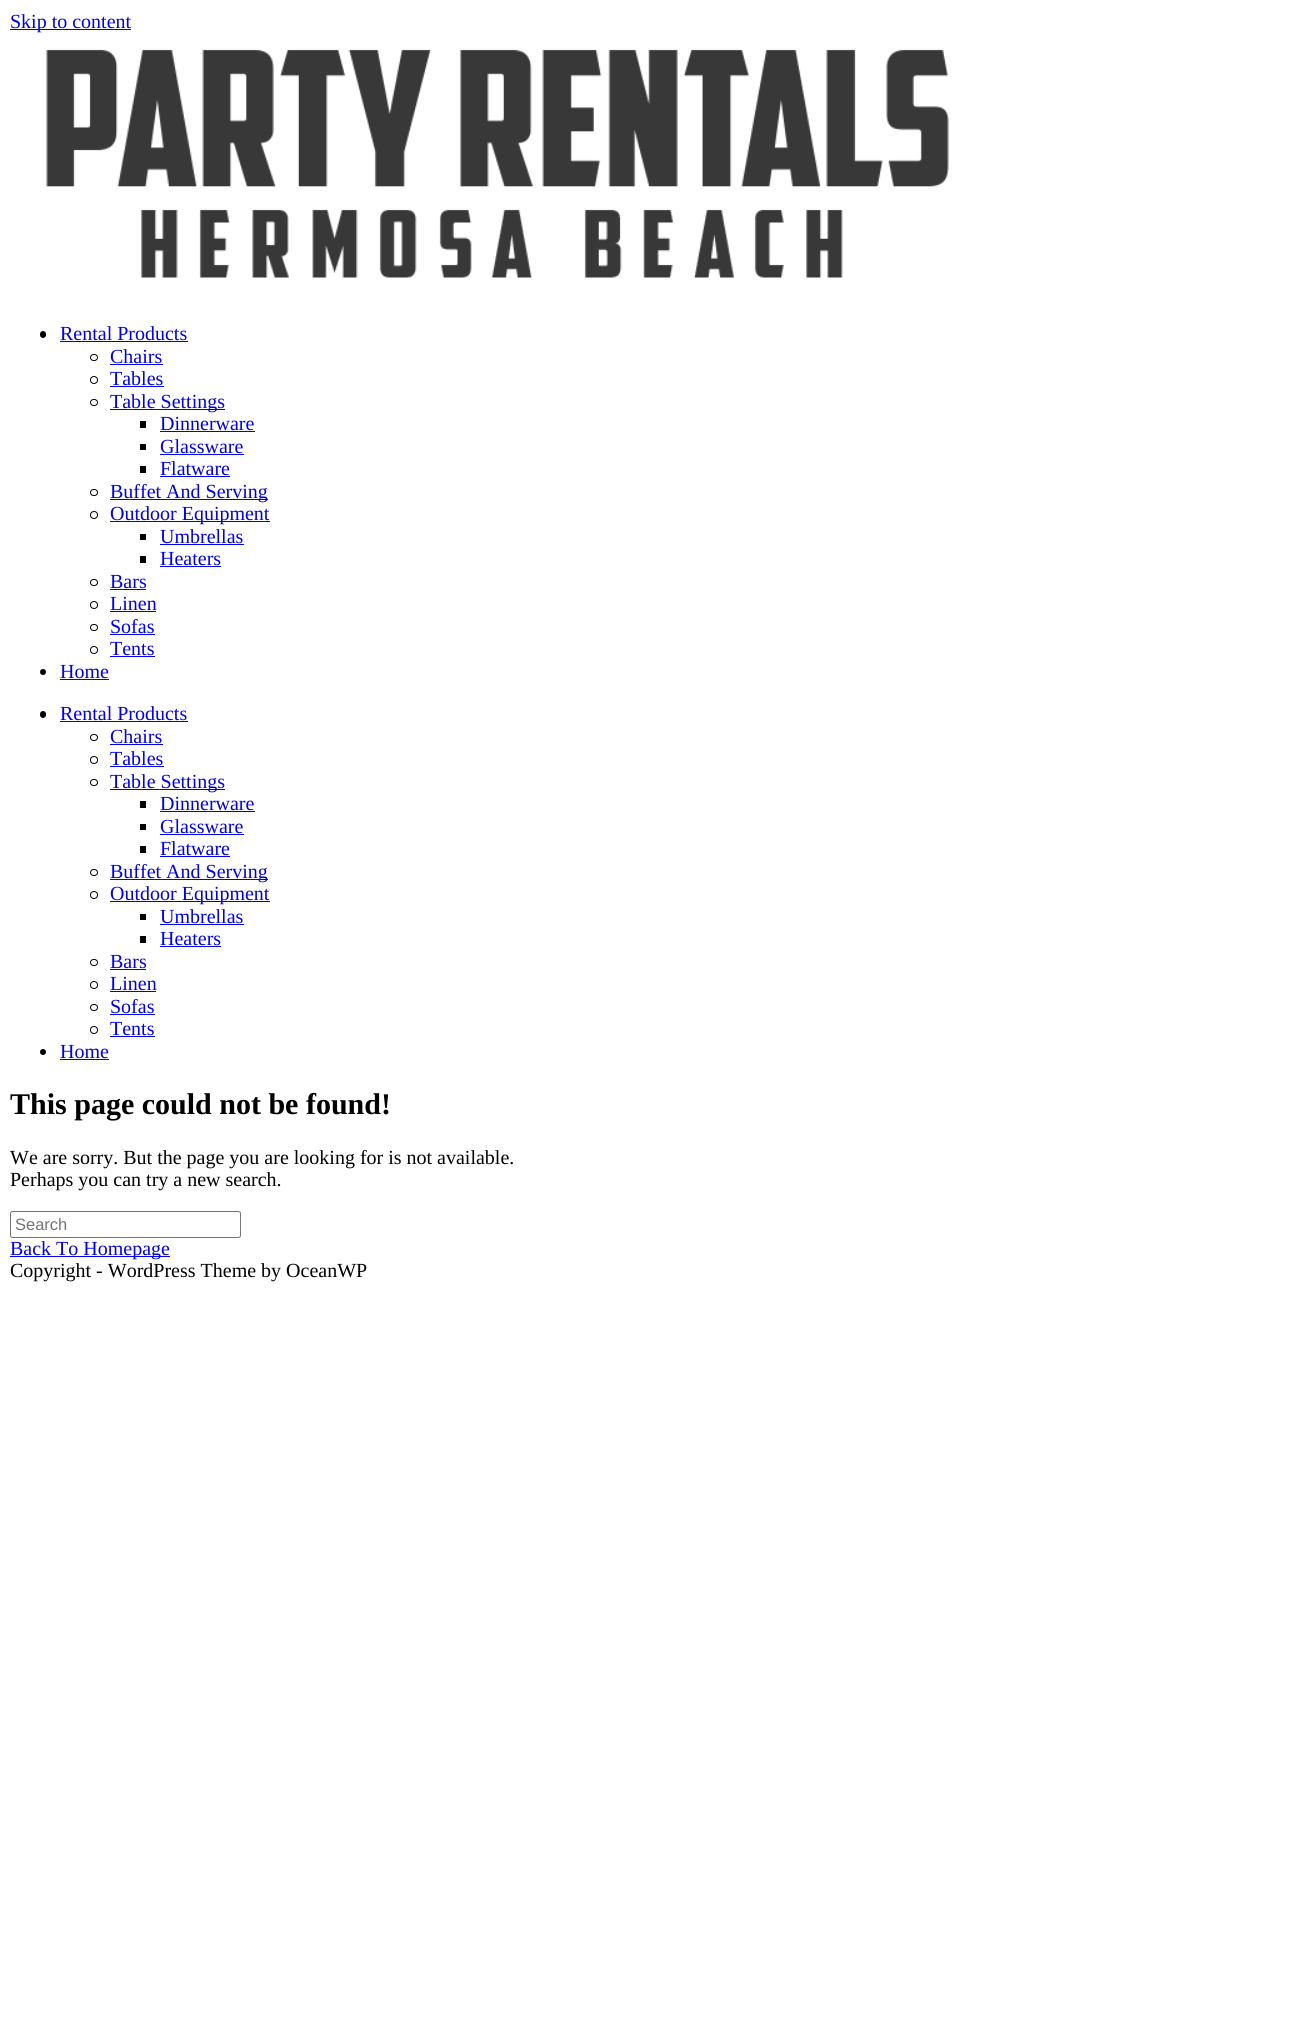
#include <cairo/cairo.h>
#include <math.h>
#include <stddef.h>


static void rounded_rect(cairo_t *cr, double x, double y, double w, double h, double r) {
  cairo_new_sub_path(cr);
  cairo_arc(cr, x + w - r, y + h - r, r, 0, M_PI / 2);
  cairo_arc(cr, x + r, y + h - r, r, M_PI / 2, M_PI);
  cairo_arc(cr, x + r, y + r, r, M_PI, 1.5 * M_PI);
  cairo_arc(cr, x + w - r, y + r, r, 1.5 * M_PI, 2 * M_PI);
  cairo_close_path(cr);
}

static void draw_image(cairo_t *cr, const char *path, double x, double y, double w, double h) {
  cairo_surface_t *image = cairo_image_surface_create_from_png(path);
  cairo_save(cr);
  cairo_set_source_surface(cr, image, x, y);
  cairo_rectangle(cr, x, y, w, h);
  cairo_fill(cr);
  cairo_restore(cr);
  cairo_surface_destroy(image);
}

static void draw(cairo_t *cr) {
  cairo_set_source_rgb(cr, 1, 1, 1);
  cairo_paint(cr);
  cairo_set_source_rgb(cr, 0, 0, 238 / 255.0);
  cairo_rectangle(cr, 10, 29, 121, 1);
  cairo_fill(cr);
  draw_image(cr, "images/1.png", 46, 49, 903, 229);
  cairo_set_source_rgb(cr, 0, 0, 0);
  rounded_rect(cr, 40, 331, 6, 7, 3);
  cairo_fill(cr);
  cairo_set_source_rgb(cr, 0, 0, 238 / 255.0);
  cairo_rectangle(cr, 60, 341, 128, 1);
  cairo_fill(cr);
  rounded_rect(cr, 90.5, 354.5, 7, 6, 3);
  cairo_set_source_rgb(cr, 0, 0, 0);
  cairo_set_line_width(cr, 1);
  cairo_stroke(cr);
  cairo_set_source_rgb(cr, 0, 0, 238 / 255.0);
  cairo_rectangle(cr, 110, 364, 53, 1);
  cairo_fill(cr);
  cairo_arc(cr, 94, 380, 3.5, 0, 2 * M_PI);
  cairo_set_source_rgb(cr, 0, 0, 0);
  cairo_stroke(cr);
  cairo_set_source_rgb(cr, 0, 0, 238 / 255.0);
  cairo_rectangle(cr, 110, 386, 54, 1);
  cairo_fill(cr);
  rounded_rect(cr, 90.5, 399.5, 7, 6, 3);
  cairo_set_source_rgb(cr, 0, 0, 0);
  cairo_stroke(cr);
  cairo_set_source_rgb(cr, 0, 0, 238 / 255.0);
  cairo_rectangle(cr, 110, 409, 115, 1);
  cairo_fill(cr);
  cairo_set_source_rgb(cr, 0, 0, 0);
  cairo_rectangle(cr, 140, 421, 6, 7);
  cairo_fill(cr);
  cairo_set_source_rgb(cr, 0, 0, 238 / 255.0);
  cairo_rectangle(cr, 160, 431, 95, 1);
  cairo_fill(cr);
  cairo_set_source_rgb(cr, 0, 0, 0);
  cairo_rectangle(cr, 140, 444, 6, 6);
  cairo_fill(cr);
  cairo_set_source_rgb(cr, 0, 0, 238 / 255.0);
  cairo_rectangle(cr, 160, 454, 84, 1);
  cairo_fill(cr);
  cairo_set_source_rgb(cr, 0, 0, 0);
  cairo_rectangle(cr, 140, 466, 6, 7);
  cairo_fill(cr);
  cairo_set_source_rgb(cr, 0, 0, 238 / 255.0);
  cairo_rectangle(cr, 160, 476, 70, 1);
  cairo_fill(cr);
  rounded_rect(cr, 90.5, 489.5, 7, 6, 3);
  cairo_set_source_rgb(cr, 0, 0, 0);
  cairo_stroke(cr);
  cairo_set_source_rgb(cr, 0, 0, 238 / 255.0);
  cairo_rectangle(cr, 110, 499, 158, 1);
  cairo_fill(cr);
  cairo_arc(cr, 94, 515, 3.5, 0, 2 * M_PI);
  cairo_set_source_rgb(cr, 0, 0, 0);
  cairo_stroke(cr);
  cairo_set_source_rgb(cr, 0, 0, 238 / 255.0);
  cairo_rectangle(cr, 110, 521, 160, 1);
  cairo_fill(cr);
  cairo_set_source_rgb(cr, 0, 0, 0);
  cairo_rectangle(cr, 140, 534, 6, 6);
  cairo_fill(cr);
  cairo_set_source_rgb(cr, 0, 0, 238 / 255.0);
  cairo_rectangle(cr, 160, 544, 84, 1);
  cairo_fill(cr);
  cairo_set_source_rgb(cr, 0, 0, 0);
  cairo_rectangle(cr, 140, 556, 6, 7);
  cairo_fill(cr);
  cairo_set_source_rgb(cr, 0, 0, 238 / 255.0);
  cairo_rectangle(cr, 160, 566, 61, 1);
  cairo_fill(cr);
  rounded_rect(cr, 90.5, 579.5, 7, 6, 3);
  cairo_set_source_rgb(cr, 0, 0, 0);
  cairo_stroke(cr);
  cairo_set_source_rgb(cr, 0, 0, 238 / 255.0);
  cairo_rectangle(cr, 110, 589, 36, 1);
  cairo_fill(cr);
  cairo_arc(cr, 94, 605, 3.5, 0, 2 * M_PI);
  cairo_set_source_rgb(cr, 0, 0, 0);
  cairo_stroke(cr);
  cairo_set_source_rgb(cr, 0, 0, 238 / 255.0);
  cairo_rectangle(cr, 110, 611, 46, 1);
  cairo_fill(cr);
  rounded_rect(cr, 90.5, 624.5, 7, 6, 3);
  cairo_set_source_rgb(cr, 0, 0, 0);
  cairo_stroke(cr);
  cairo_set_source_rgb(cr, 0, 0, 238 / 255.0);
  cairo_rectangle(cr, 110, 634, 45, 1);
  cairo_fill(cr);
  cairo_arc(cr, 94, 650, 3.5, 0, 2 * M_PI);
  cairo_set_source_rgb(cr, 0, 0, 0);
  cairo_stroke(cr);
  cairo_set_source_rgb(cr, 0, 0, 238 / 255.0);
  cairo_rectangle(cr, 110, 656, 45, 1);
  cairo_fill(cr);
  cairo_set_source_rgb(cr, 0, 0, 0);
  cairo_arc(cr, 43, 672, 3, 0, 2 * M_PI);
  cairo_fill(cr);
  cairo_set_source_rgb(cr, 0, 0, 238 / 255.0);
  cairo_rectangle(cr, 60, 679, 49, 1);
  cairo_fill(cr);
  cairo_set_source_rgb(cr, 0, 0, 0);
  rounded_rect(cr, 40, 711, 6, 7, 3);
  cairo_fill(cr);
  cairo_set_source_rgb(cr, 0, 0, 238 / 255.0);
  cairo_rectangle(cr, 60, 721, 128, 1);
  cairo_fill(cr);
  rounded_rect(cr, 90.5, 734.5, 7, 6, 3);
  cairo_set_source_rgb(cr, 0, 0, 0);
  cairo_stroke(cr);
  cairo_set_source_rgb(cr, 0, 0, 238 / 255.0);
  cairo_rectangle(cr, 110, 744, 53, 1);
  cairo_fill(cr);
  cairo_arc(cr, 94, 760, 3.5, 0, 2 * M_PI);
  cairo_set_source_rgb(cr, 0, 0, 0);
  cairo_stroke(cr);
  cairo_set_source_rgb(cr, 0, 0, 238 / 255.0);
  cairo_rectangle(cr, 110, 766, 54, 1);
  cairo_fill(cr);
  rounded_rect(cr, 90.5, 779.5, 7, 6, 3);
  cairo_set_source_rgb(cr, 0, 0, 0);
  cairo_stroke(cr);
  cairo_set_source_rgb(cr, 0, 0, 238 / 255.0);
  cairo_rectangle(cr, 110, 789, 115, 1);
  cairo_fill(cr);
  cairo_set_source_rgb(cr, 0, 0, 0);
  cairo_rectangle(cr, 140, 801, 6, 7);
  cairo_fill(cr);
  cairo_set_source_rgb(cr, 0, 0, 238 / 255.0);
  cairo_rectangle(cr, 160, 811, 95, 1);
  cairo_fill(cr);
  cairo_set_source_rgb(cr, 0, 0, 0);
  cairo_rectangle(cr, 140, 824, 6, 6);
  cairo_fill(cr);
  cairo_set_source_rgb(cr, 0, 0, 238 / 255.0);
  cairo_rectangle(cr, 160, 834, 84, 1);
  cairo_fill(cr);
  cairo_set_source_rgb(cr, 0, 0, 0);
  cairo_rectangle(cr, 140, 846, 6, 7);
  cairo_fill(cr);
  cairo_set_source_rgb(cr, 0, 0, 238 / 255.0);
  cairo_rectangle(cr, 160, 856, 70, 1);
  cairo_fill(cr);
  rounded_rect(cr, 90.5, 869.5, 7, 6, 3);
  cairo_set_source_rgb(cr, 0, 0, 0);
  cairo_stroke(cr);
  cairo_set_source_rgb(cr, 0, 0, 238 / 255.0);
  cairo_rectangle(cr, 110, 879, 158, 1);
  cairo_fill(cr);
  cairo_arc(cr, 94, 895, 3.5, 0, 2 * M_PI);
  cairo_set_source_rgb(cr, 0, 0, 0);
  cairo_stroke(cr);
  cairo_set_source_rgb(cr, 0, 0, 238 / 255.0);
  cairo_rectangle(cr, 110, 901, 160, 1);
  cairo_fill(cr);
  cairo_set_source_rgb(cr, 0, 0, 0);
  cairo_rectangle(cr, 140, 914, 6, 6);
  cairo_fill(cr);
  cairo_set_source_rgb(cr, 0, 0, 238 / 255.0);
  cairo_rectangle(cr, 160, 924, 84, 1);
  cairo_fill(cr);
  cairo_set_source_rgb(cr, 0, 0, 0);
  cairo_rectangle(cr, 140, 936, 6, 7);
  cairo_fill(cr);
  cairo_set_source_rgb(cr, 0, 0, 238 / 255.0);
  cairo_rectangle(cr, 160, 946, 61, 1);
  cairo_fill(cr);
  rounded_rect(cr, 90.5, 959.5, 7, 6, 3);
  cairo_set_source_rgb(cr, 0, 0, 0);
  cairo_stroke(cr);
  cairo_set_source_rgb(cr, 0, 0, 238 / 255.0);
  cairo_rectangle(cr, 110, 969, 36, 1);
  cairo_fill(cr);
  cairo_arc(cr, 94, 985, 3.5, 0, 2 * M_PI);
  cairo_set_source_rgb(cr, 0, 0, 0);
  cairo_stroke(cr);
  cairo_set_source_rgb(cr, 0, 0, 238 / 255.0);
  cairo_rectangle(cr, 110, 991, 46, 1);
  cairo_fill(cr);
  rounded_rect(cr, 90.5, 1004.5, 7, 6, 3);
  cairo_set_source_rgb(cr, 0, 0, 0);
  cairo_stroke(cr);
  cairo_set_source_rgb(cr, 0, 0, 238 / 255.0);
  cairo_rectangle(cr, 110, 1014, 45, 1);
  cairo_fill(cr);
  cairo_arc(cr, 94, 1030, 3.5, 0, 2 * M_PI);
  cairo_set_source_rgb(cr, 0, 0, 0);
  cairo_stroke(cr);
  cairo_set_source_rgb(cr, 0, 0, 238 / 255.0);
  cairo_rectangle(cr, 110, 1036, 45, 1);
  cairo_fill(cr);
  cairo_set_source_rgb(cr, 0, 0, 0);
  cairo_arc(cr, 43, 1052, 3, 0, 2 * M_PI);
  cairo_fill(cr);
  cairo_set_source_rgb(cr, 0, 0, 238 / 255.0);
  cairo_rectangle(cr, 60, 1059, 49, 1);
  cairo_fill(cr);
  rounded_rect(cr, 10.5, 1211.5, 230, 26, 2);
  cairo_set_source_rgb(cr, 118 / 255.0, 118 / 255.0, 118 / 255.0);
  cairo_stroke(cr);
  cairo_set_source_rgb(cr, 0, 0, 238 / 255.0);
  cairo_rectangle(cr, 10, 1256, 160, 1);
  cairo_fill(cr);
  cairo_select_font_face(cr, "Liberation Serif", CAIRO_FONT_SLANT_NORMAL, CAIRO_FONT_WEIGHT_NORMAL);
  cairo_set_font_size(cr, 20);
  cairo_move_to(cr, 10, 28);
  cairo_show_text(cr, "Skip to content");
  cairo_move_to(cr, 60, 340);
  cairo_show_text(cr, "Rental Products");
  cairo_move_to(cr, 110, 363);
  cairo_show_text(cr, "Chairs");
  cairo_move_to(cr, 110, 385);
  cairo_show_text(cr, "Tables");
  cairo_move_to(cr, 110, 408);
  cairo_show_text(cr, "Table Settings");
  cairo_move_to(cr, 160, 430);
  cairo_show_text(cr, "Dinnerware");
  cairo_move_to(cr, 160, 453);
  cairo_show_text(cr, "Glassware");
  cairo_move_to(cr, 160, 475);
  cairo_show_text(cr, "Flatware");
  cairo_move_to(cr, 110, 498);
  cairo_show_text(cr, "Buffet And Serving");
  cairo_move_to(cr, 110, 520);
  cairo_show_text(cr, "Outdoor Equipment");
  cairo_move_to(cr, 160, 543);
  cairo_show_text(cr, "Umbrellas");
  cairo_move_to(cr, 160, 565);
  cairo_show_text(cr, "Heaters");
  cairo_move_to(cr, 110, 588);
  cairo_show_text(cr, "Bars");
  cairo_move_to(cr, 110, 610);
  cairo_show_text(cr, "Linen");
  cairo_move_to(cr, 110, 633);
  cairo_show_text(cr, "Sofas");
  cairo_move_to(cr, 110, 655);
  cairo_show_text(cr, "Tents");
  cairo_move_to(cr, 60, 678);
  cairo_show_text(cr, "Home");
  cairo_move_to(cr, 60, 720);
  cairo_show_text(cr, "Rental Products");
  cairo_move_to(cr, 110, 743);
  cairo_show_text(cr, "Chairs");
  cairo_move_to(cr, 110, 765);
  cairo_show_text(cr, "Tables");
  cairo_move_to(cr, 110, 788);
  cairo_show_text(cr, "Table Settings");
  cairo_move_to(cr, 160, 810);
  cairo_show_text(cr, "Dinnerware");
  cairo_move_to(cr, 160, 833);
  cairo_show_text(cr, "Glassware");
  cairo_move_to(cr, 160, 855);
  cairo_show_text(cr, "Flatware");
  cairo_move_to(cr, 110, 878);
  cairo_show_text(cr, "Buffet And Serving");
  cairo_move_to(cr, 110, 900);
  cairo_show_text(cr, "Outdoor Equipment");
  cairo_move_to(cr, 160, 923);
  cairo_show_text(cr, "Umbrellas");
  cairo_move_to(cr, 160, 945);
  cairo_show_text(cr, "Heaters");
  cairo_move_to(cr, 110, 968);
  cairo_show_text(cr, "Bars");
  cairo_move_to(cr, 110, 990);
  cairo_show_text(cr, "Linen");
  cairo_move_to(cr, 110, 1013);
  cairo_show_text(cr, "Sofas");
  cairo_move_to(cr, 110, 1035);
  cairo_show_text(cr, "Tents");
  cairo_move_to(cr, 60, 1058);
  cairo_show_text(cr, "Home");
  cairo_select_font_face(cr, "Liberation Serif", CAIRO_FONT_SLANT_NORMAL, CAIRO_FONT_WEIGHT_BOLD);
  cairo_set_font_size(cr, 30);
  cairo_set_source_rgb(cr, 0, 0, 0);
  cairo_move_to(cr, 10, 1114);
  cairo_show_text(cr, "This page could not be found!");
  cairo_select_font_face(cr, "Liberation Serif", CAIRO_FONT_SLANT_NORMAL, CAIRO_FONT_WEIGHT_NORMAL);
  cairo_set_font_size(cr, 20);
  cairo_move_to(cr, 10, 1164);
  cairo_show_text(cr, "We are sorry. But the page you are looking for is not available.");
  cairo_move_to(cr, 10, 1186);
  cairo_show_text(cr, "Perhaps you can try a new search.");
  cairo_select_font_face(cr, "Liberation Sans", CAIRO_FONT_SLANT_NORMAL, CAIRO_FONT_WEIGHT_NORMAL);
  cairo_set_font_size(cr, 16.5);
  cairo_set_source_rgb(cr, 117 / 255.0, 117 / 255.0, 117 / 255.0);
  cairo_move_to(cr, 15, 1230);
  cairo_show_text(cr, "Search");
  cairo_select_font_face(cr, "Liberation Serif", CAIRO_FONT_SLANT_NORMAL, CAIRO_FONT_WEIGHT_NORMAL);
  cairo_set_font_size(cr, 20);
  cairo_set_source_rgb(cr, 0, 0, 238 / 255.0);
  cairo_move_to(cr, 10, 1255);
  cairo_show_text(cr, "Back To Homepage");
  cairo_set_source_rgb(cr, 0, 0, 0);
  cairo_move_to(cr, 10, 1277);
  cairo_show_text(cr, "Copyright - WordPress Theme by OceanWP");
}

int main(void) {
  cairo_surface_t *surface = cairo_image_surface_create(CAIRO_FORMAT_RGB24, 1310, 2041);
  cairo_t *cr = cairo_create(surface);
  cairo_font_options_t *options = cairo_font_options_create();
  cairo_font_options_set_hint_metrics(options, CAIRO_HINT_METRICS_OFF);
  cairo_font_options_set_hint_style(options, CAIRO_HINT_STYLE_NONE);
  cairo_set_font_options(cr, options);
  cairo_set_miter_limit(cr, 4);
  draw(cr);
  cairo_surface_write_to_png(surface, "out.png");
  cairo_font_options_destroy(options);
  cairo_destroy(cr);
  cairo_surface_destroy(surface);
  return 0;
}
